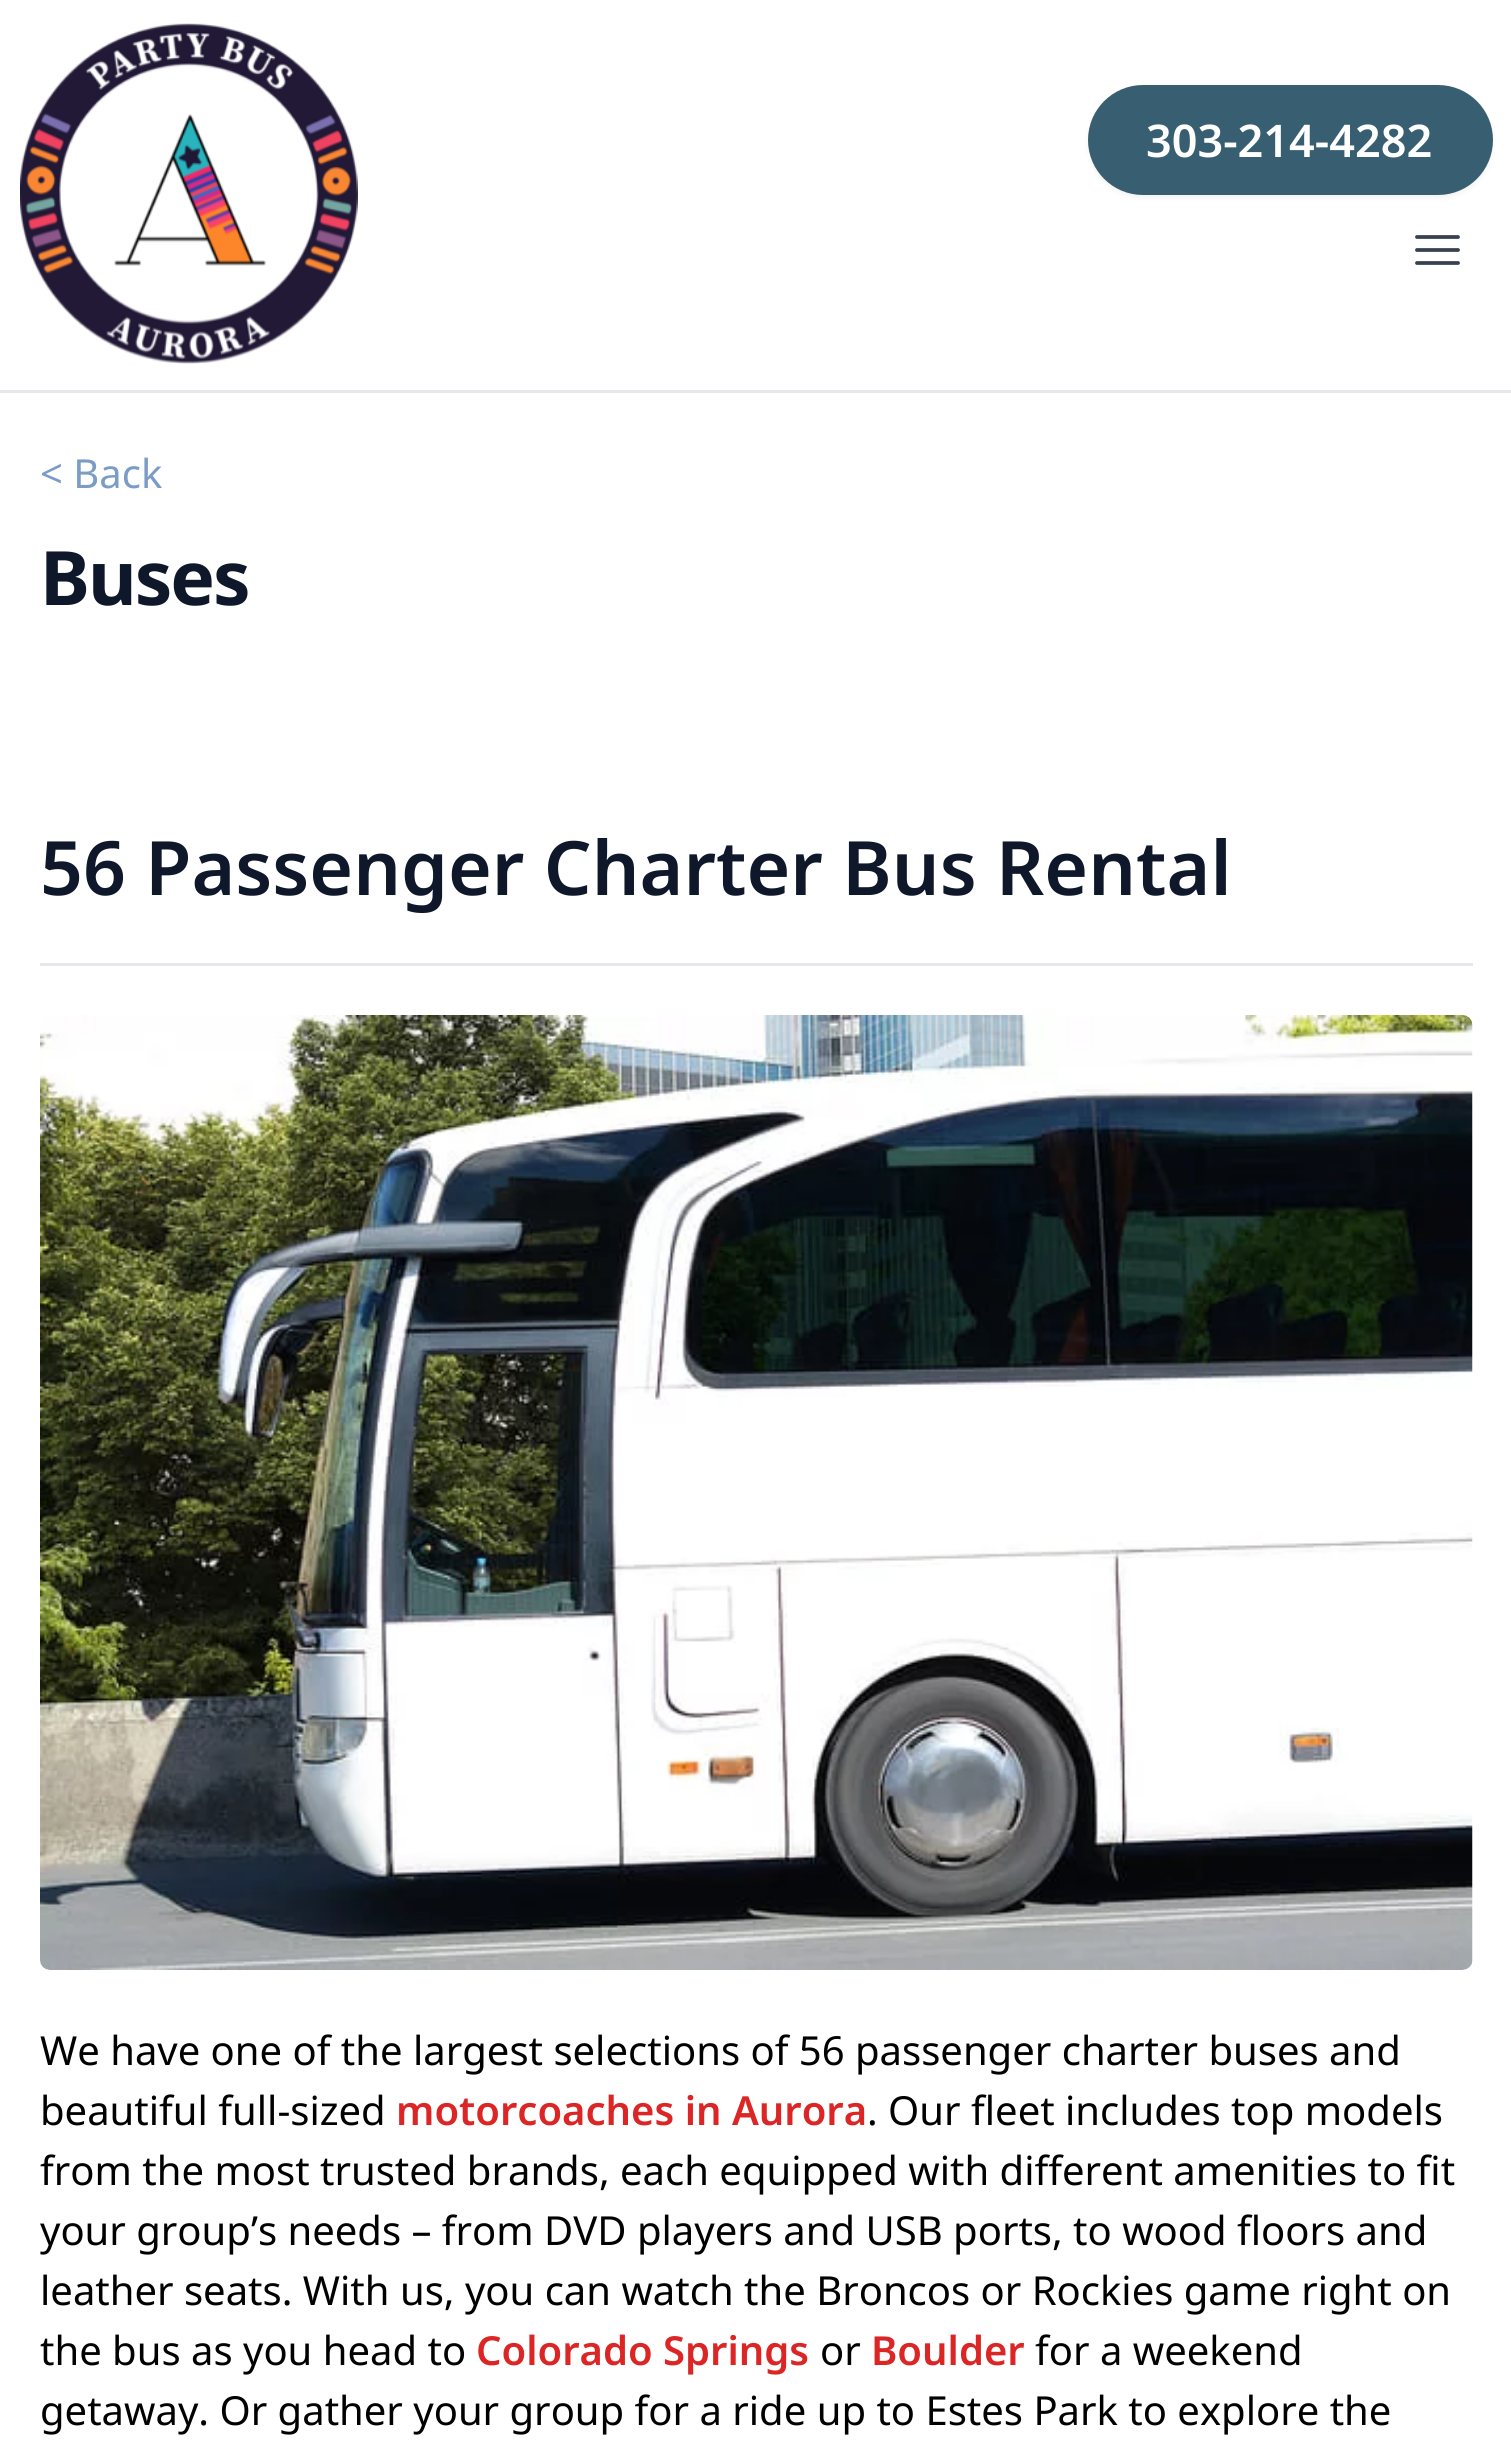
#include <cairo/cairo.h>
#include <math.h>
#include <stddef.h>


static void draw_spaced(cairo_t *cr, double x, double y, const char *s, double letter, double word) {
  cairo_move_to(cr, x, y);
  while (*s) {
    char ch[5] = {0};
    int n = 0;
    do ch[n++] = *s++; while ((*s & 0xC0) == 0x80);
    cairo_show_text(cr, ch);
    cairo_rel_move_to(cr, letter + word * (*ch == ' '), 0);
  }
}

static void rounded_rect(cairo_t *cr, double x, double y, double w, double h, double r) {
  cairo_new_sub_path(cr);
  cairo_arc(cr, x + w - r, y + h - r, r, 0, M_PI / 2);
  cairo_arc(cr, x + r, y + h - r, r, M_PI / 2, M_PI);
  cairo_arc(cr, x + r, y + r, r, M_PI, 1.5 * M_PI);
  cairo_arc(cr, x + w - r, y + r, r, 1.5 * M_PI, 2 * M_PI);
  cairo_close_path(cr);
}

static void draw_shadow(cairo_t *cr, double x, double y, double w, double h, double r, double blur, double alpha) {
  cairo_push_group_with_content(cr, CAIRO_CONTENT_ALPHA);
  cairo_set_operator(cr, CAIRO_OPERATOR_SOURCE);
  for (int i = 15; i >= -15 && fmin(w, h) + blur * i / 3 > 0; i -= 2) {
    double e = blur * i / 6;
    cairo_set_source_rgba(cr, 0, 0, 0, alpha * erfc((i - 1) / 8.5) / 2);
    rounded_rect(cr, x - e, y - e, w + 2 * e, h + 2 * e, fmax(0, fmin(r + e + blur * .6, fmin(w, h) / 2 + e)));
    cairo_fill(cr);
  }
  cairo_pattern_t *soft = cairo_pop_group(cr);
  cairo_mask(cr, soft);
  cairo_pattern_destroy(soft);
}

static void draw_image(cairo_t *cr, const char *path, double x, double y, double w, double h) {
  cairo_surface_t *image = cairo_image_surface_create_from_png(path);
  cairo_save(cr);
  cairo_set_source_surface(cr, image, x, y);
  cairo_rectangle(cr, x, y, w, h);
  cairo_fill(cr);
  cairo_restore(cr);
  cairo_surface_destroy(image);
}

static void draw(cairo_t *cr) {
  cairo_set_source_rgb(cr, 1, 1, 1);
  cairo_paint(cr);
  cairo_set_source_rgb(cr, 229 / 255.0, 231 / 255.0, 235 / 255.0);
  cairo_rectangle(cr, 0, 390, 1511, 3);
  cairo_fill(cr);
  draw_image(cr, "images/1.png", 20, 23, 338, 341);
  cairo_set_source_rgb(cr, 0, 0, 0);
  draw_shadow(cr, 1088, 88, 405, 110, 55, 2.5, 0.05);
  cairo_set_source_rgb(cr, 56 / 255.0, 95 / 255.0, 113 / 255.0);
  rounded_rect(cr, 1088, 85, 405, 110, 55);
  cairo_fill(cr);
  cairo_new_path(cr);
  cairo_move_to(cr, 1417, 237);
  cairo_line_to(cr, 1458, 237);
  cairo_move_to(cr, 1417, 250);
  cairo_line_to(cr, 1458, 250);
  cairo_move_to(cr, 1417, 263);
  cairo_line_to(cr, 1458, 263);
  cairo_set_source_rgb(cr, 55 / 255.0, 65 / 255.0, 81 / 255.0);
  cairo_set_line_width(cr, 3.8);
  cairo_set_line_cap(cr, CAIRO_LINE_CAP_ROUND);
  cairo_set_line_join(cr, CAIRO_LINE_JOIN_ROUND);
  cairo_stroke(cr);
  cairo_set_source_rgb(cr, 229 / 255.0, 231 / 255.0, 235 / 255.0);
  cairo_rectangle(cr, 40, 963, 1433, 3);
  cairo_fill(cr);
  draw_image(cr, "images/2.png", 40, 1015, 1433, 955);
  cairo_select_font_face(cr, "Noto Sans SemiBold", CAIRO_FONT_SLANT_NORMAL, CAIRO_FONT_WEIGHT_NORMAL);
  cairo_set_font_size(cr, 45);
  cairo_set_source_rgb(cr, 1, 1, 1);
  cairo_move_to(cr, 1146, 157);
  cairo_show_text(cr, "303-214-4282");
  cairo_select_font_face(cr, "Noto Sans", CAIRO_FONT_SLANT_NORMAL, CAIRO_FONT_WEIGHT_NORMAL);
  cairo_set_font_size(cr, 40);
  cairo_set_source_rgb(cr, 122 / 255.0, 156 / 255.0, 198 / 255.0);
  cairo_move_to(cr, 40, 488);
  cairo_show_text(cr, "< Back");
  cairo_select_font_face(cr, "Noto Sans", CAIRO_FONT_SLANT_NORMAL, CAIRO_FONT_WEIGHT_BOLD);
  cairo_set_font_size(cr, 75);
  cairo_set_source_rgb(cr, 15 / 255.0, 23 / 255.0, 42 / 255.0);
  draw_spaced(cr, 40, 605, "Buses", -2, 0);
  cairo_select_font_face(cr, "Noto Sans SemiBold", CAIRO_FONT_SLANT_NORMAL, CAIRO_FONT_WEIGHT_NORMAL);
  cairo_move_to(cr, 40, 895);
  cairo_show_text(cr, "56 Passenger Charter Bus Rental");
  cairo_select_font_face(cr, "Noto Sans", CAIRO_FONT_SLANT_NORMAL, CAIRO_FONT_WEIGHT_NORMAL);
  cairo_set_font_size(cr, 40);
  cairo_set_source_rgb(cr, 0, 0, 0);
  cairo_move_to(cr, 40, 2065);
  cairo_show_text(cr, "We have one of the largest selections of 56 passenger charter buses and");
  cairo_move_to(cr, 40, 2125);
  cairo_show_text(cr, "beautiful full-sized");
  cairo_select_font_face(cr, "Noto Sans SemiBold", CAIRO_FONT_SLANT_NORMAL, CAIRO_FONT_WEIGHT_NORMAL);
  cairo_set_source_rgb(cr, 220 / 255.0, 38 / 255.0, 38 / 255.0);
  cairo_move_to(cr, 396, 2125);
  cairo_show_text(cr, "motorcoaches in Aurora");
  cairo_select_font_face(cr, "Noto Sans", CAIRO_FONT_SLANT_NORMAL, CAIRO_FONT_WEIGHT_NORMAL);
  cairo_set_source_rgb(cr, 0, 0, 0);
  cairo_move_to(cr, 867, 2125);
  cairo_show_text(cr, ". Our fleet includes top models");
  cairo_move_to(cr, 40, 2185);
  cairo_show_text(cr, "from the most trusted brands, each equipped with different amenities to fit");
  cairo_move_to(cr, 40, 2245);
  cairo_show_text(cr, "your group’s needs – from DVD players and USB ports, to wood floors and");
  cairo_move_to(cr, 40, 2305);
  cairo_show_text(cr, "leather seats. With us, you can watch the Broncos or Rockies game right on");
  cairo_move_to(cr, 40, 2365);
  cairo_show_text(cr, "the bus as you head to");
  cairo_select_font_face(cr, "Noto Sans SemiBold", CAIRO_FONT_SLANT_NORMAL, CAIRO_FONT_WEIGHT_NORMAL);
  cairo_set_source_rgb(cr, 220 / 255.0, 38 / 255.0, 38 / 255.0);
  cairo_move_to(cr, 476, 2365);
  cairo_show_text(cr, "Colorado Springs");
  cairo_select_font_face(cr, "Noto Sans", CAIRO_FONT_SLANT_NORMAL, CAIRO_FONT_WEIGHT_NORMAL);
  cairo_set_source_rgb(cr, 0, 0, 0);
  cairo_move_to(cr, 820, 2365);
  cairo_show_text(cr, "or");
  cairo_select_font_face(cr, "Noto Sans SemiBold", CAIRO_FONT_SLANT_NORMAL, CAIRO_FONT_WEIGHT_NORMAL);
  cairo_set_source_rgb(cr, 220 / 255.0, 38 / 255.0, 38 / 255.0);
  cairo_move_to(cr, 871, 2365);
  cairo_show_text(cr, "Boulder");
  cairo_select_font_face(cr, "Noto Sans", CAIRO_FONT_SLANT_NORMAL, CAIRO_FONT_WEIGHT_NORMAL);
  cairo_set_source_rgb(cr, 0, 0, 0);
  cairo_move_to(cr, 1035, 2365);
  cairo_show_text(cr, "for a weekend");
  cairo_move_to(cr, 40, 2425);
  cairo_show_text(cr, "getaway. Or gather your group for a ride up to Estes Park to explore the");
}

int main(void) {
  cairo_surface_t *surface = cairo_image_surface_create(CAIRO_FORMAT_RGB24, 1511, 2457);
  cairo_t *cr = cairo_create(surface);
  cairo_font_options_t *options = cairo_font_options_create();
  cairo_font_options_set_hint_metrics(options, CAIRO_HINT_METRICS_OFF);
  cairo_font_options_set_hint_style(options, CAIRO_HINT_STYLE_NONE);
  cairo_set_font_options(cr, options);
  cairo_set_miter_limit(cr, 4);
  draw(cr);
  cairo_surface_write_to_png(surface, "out.png");
  cairo_font_options_destroy(options);
  cairo_destroy(cr);
  cairo_surface_destroy(surface);
  return 0;
}
